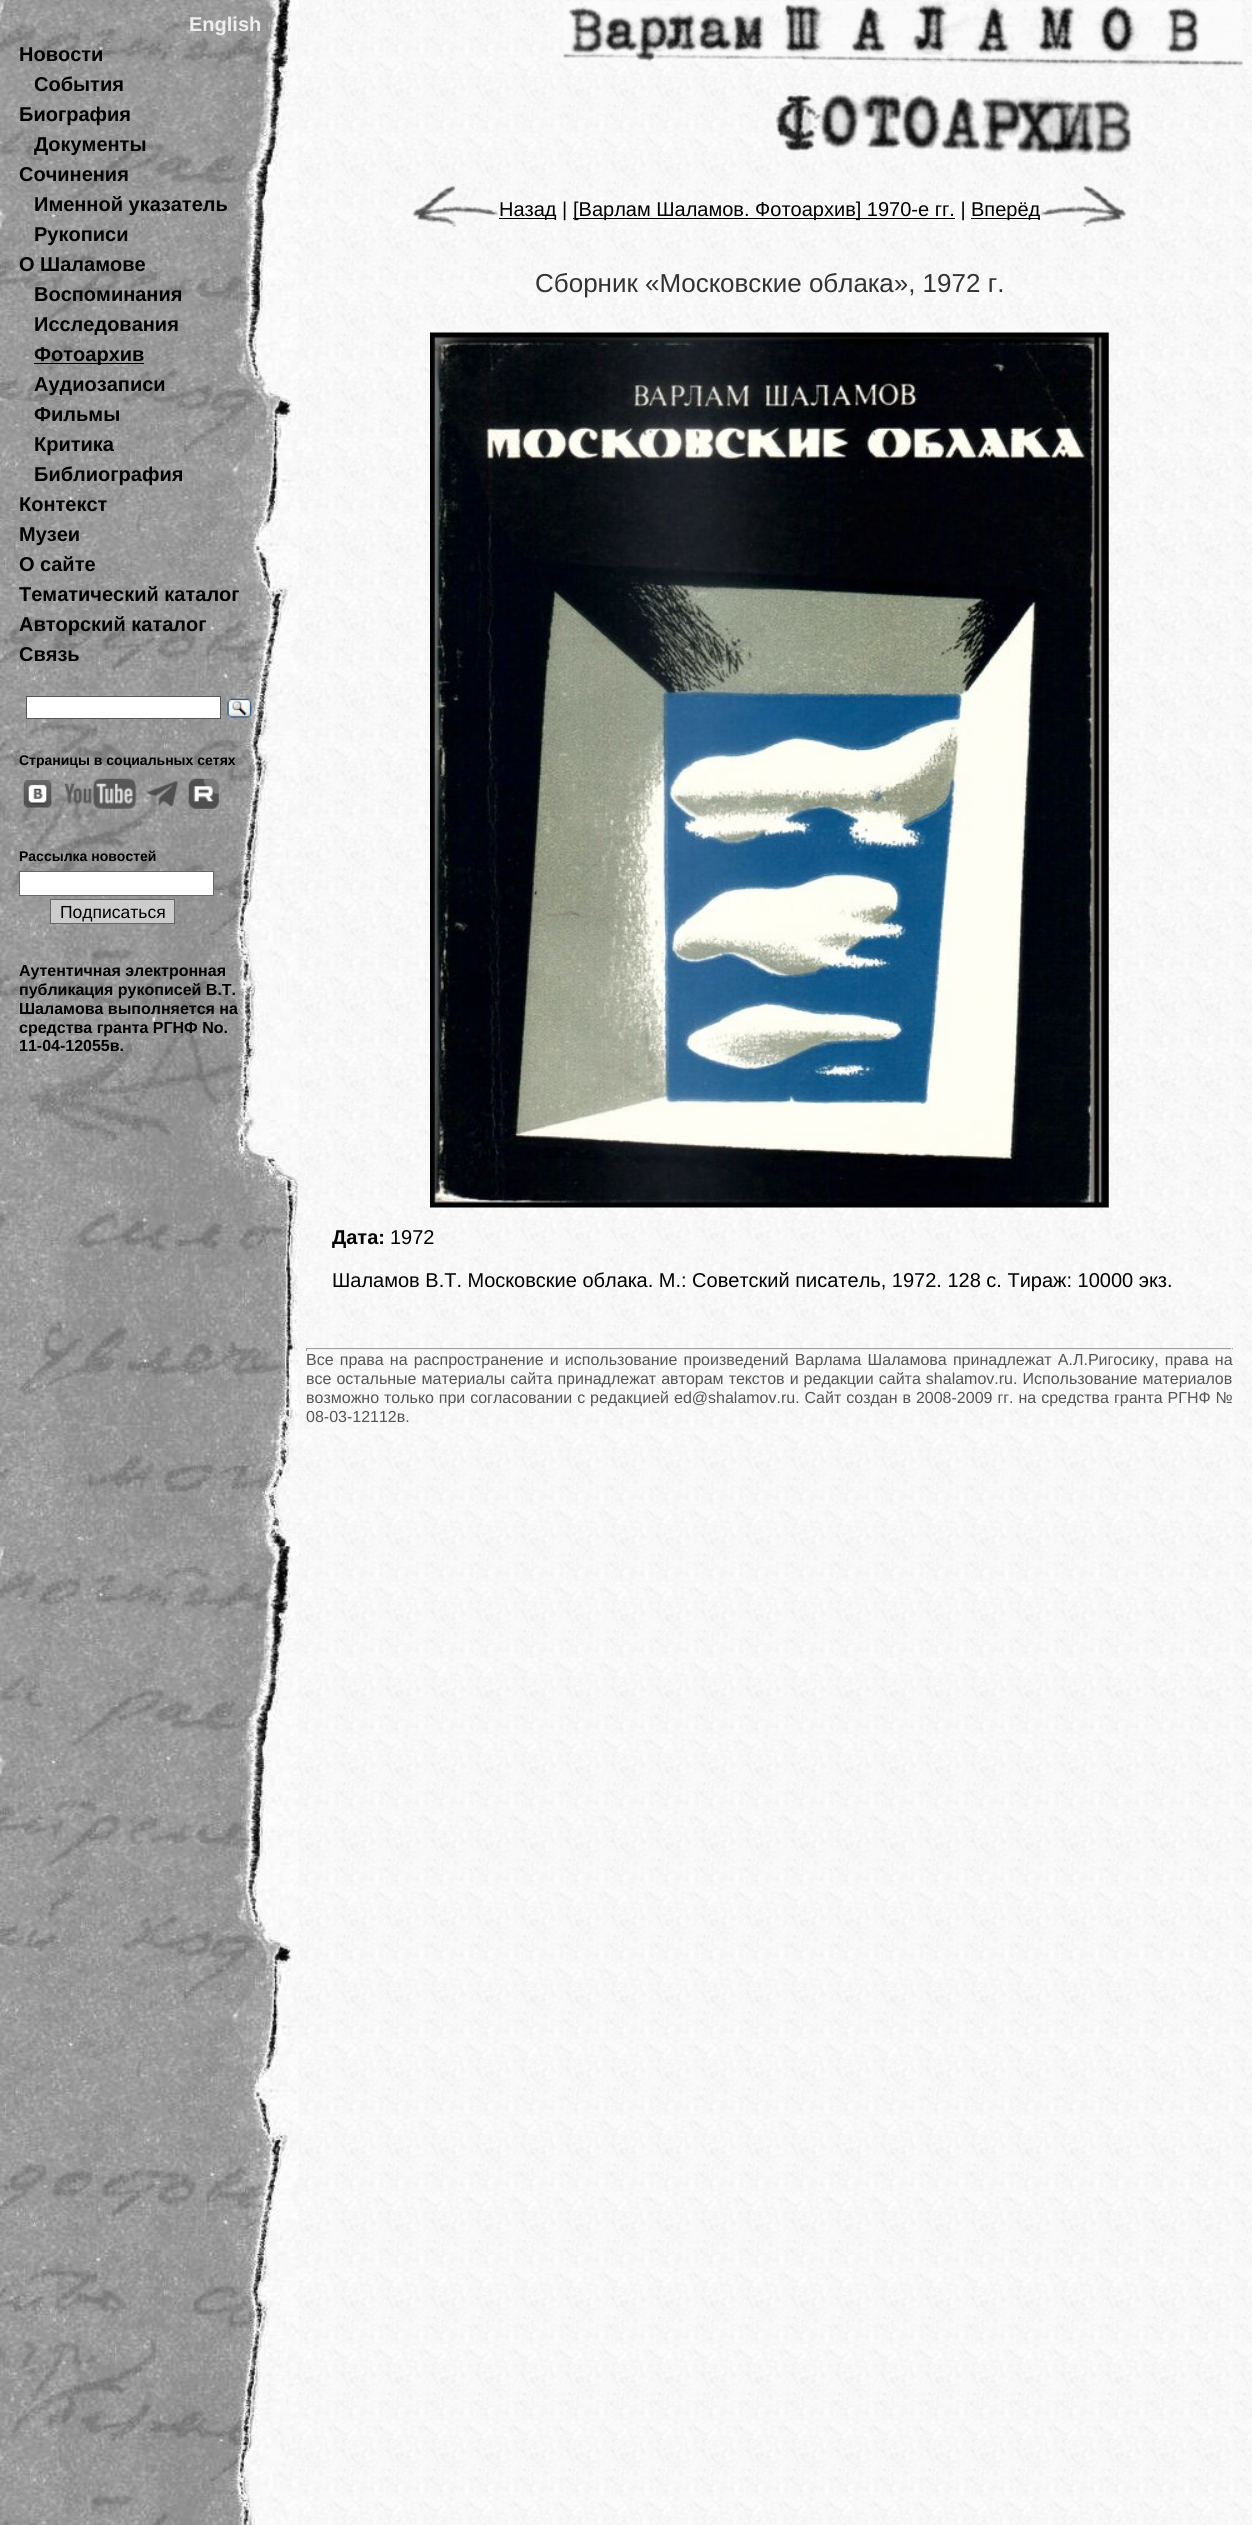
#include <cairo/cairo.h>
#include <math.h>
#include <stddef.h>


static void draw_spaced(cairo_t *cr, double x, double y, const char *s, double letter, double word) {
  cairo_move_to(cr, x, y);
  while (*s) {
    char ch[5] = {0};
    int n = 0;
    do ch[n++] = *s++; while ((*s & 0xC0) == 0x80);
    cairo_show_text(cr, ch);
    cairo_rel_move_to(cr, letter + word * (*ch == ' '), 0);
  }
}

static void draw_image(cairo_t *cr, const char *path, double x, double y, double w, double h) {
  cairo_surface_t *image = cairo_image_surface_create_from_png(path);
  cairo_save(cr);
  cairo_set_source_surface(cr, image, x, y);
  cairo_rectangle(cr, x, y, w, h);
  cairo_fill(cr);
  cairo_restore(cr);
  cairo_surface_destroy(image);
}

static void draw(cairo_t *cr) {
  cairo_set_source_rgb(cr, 1, 1, 1);
  cairo_paint(cr);
  draw_image(cr, "images/1.png", 298, 0, 954, 2525);
  draw_image(cr, "images/2.png", 0, 0, 299, 2525);
  cairo_set_source_rgb(cr, 0, 0, 0);
  cairo_rectangle(cr, 34, 363, 110, 1);
  cairo_fill(cr);
  cairo_set_source_rgb(cr, 1, 1, 1);
  cairo_rectangle(cr, 26.5, 696.5, 194, 22);
  cairo_fill_preserve(cr);
  cairo_set_source_rgb(cr, 85 / 255.0, 85 / 255.0, 85 / 255.0);
  cairo_set_line_width(cr, 1);
  cairo_stroke(cr);
  draw_image(cr, "images/3.png", 227, 698, 25, 20);
  draw_image(cr, "images/4.png", 23, 779, 29, 29);
  draw_image(cr, "images/5.png", 64, 778, 73, 31);
  draw_image(cr, "images/6.png", 147, 781, 31, 26);
  draw_image(cr, "images/7.png", 188, 778, 31, 31);
  cairo_set_source_rgb(cr, 1, 1, 1);
  cairo_rectangle(cr, 19.5, 871.5, 194, 24);
  cairo_fill_preserve(cr);
  cairo_set_source_rgb(cr, 102 / 255.0, 102 / 255.0, 102 / 255.0);
  cairo_stroke(cr);
  cairo_set_source_rgb(cr, 204 / 255.0, 204 / 255.0, 204 / 255.0);
  cairo_rectangle(cr, 50.5, 899.5, 124, 24);
  cairo_fill_preserve(cr);
  cairo_set_source_rgb(cr, 102 / 255.0, 102 / 255.0, 102 / 255.0);
  cairo_stroke(cr);
  draw_image(cr, "images/8.png", 563, 1, 680, 66);
  draw_image(cr, "images/9.png", 774, 87, 366, 68);
  draw_image(cr, "images/10.png", 412, 184, 87, 45);
  cairo_set_source_rgb(cr, 0, 0, 0);
  cairo_rectangle(cr, 499, 218, 57, 1);
  cairo_fill(cr);
  cairo_rectangle(cr, 573, 218, 382, 1);
  cairo_fill(cr);
  cairo_rectangle(cr, 971, 218, 69, 1);
  cairo_fill(cr);
  draw_image(cr, "images/11.png", 1040, 184, 87, 45);
  draw_image(cr, "images/12.png", 430, 332, 679, 876);
  cairo_set_source_rgb(cr, 159 / 255.0, 159 / 255.0, 159 / 255.0);
  cairo_rectangle(cr, 306, 1348, 927, 1);
  cairo_fill(cr);
  cairo_set_source_rgb(cr, 238 / 255.0, 238 / 255.0, 238 / 255.0);
  cairo_rectangle(cr, 1231, 1348, 1, 3);
  cairo_fill(cr);
  cairo_rectangle(cr, 306, 1349, 927, 1);
  cairo_fill(cr);
  cairo_set_source_rgb(cr, 159 / 255.0, 159 / 255.0, 159 / 255.0);
  cairo_rectangle(cr, 306, 1348, 1, 3);
  cairo_fill(cr);
  cairo_select_font_face(cr, "Liberation Sans", CAIRO_FONT_SLANT_NORMAL, CAIRO_FONT_WEIGHT_BOLD);
  cairo_set_font_size(cr, 20);
  cairo_set_source_rgb(cr, 238 / 255.0, 238 / 255.0, 238 / 255.0);
  cairo_move_to(cr, 189, 31);
  cairo_show_text(cr, "English");
  cairo_set_source_rgb(cr, 0, 0, 0);
  cairo_move_to(cr, 19, 61);
  cairo_show_text(cr, "Новости");
  cairo_move_to(cr, 34, 91);
  cairo_show_text(cr, "События");
  cairo_move_to(cr, 19, 121);
  cairo_show_text(cr, "Биография");
  cairo_move_to(cr, 34, 151);
  cairo_show_text(cr, "Документы");
  cairo_move_to(cr, 19, 181);
  cairo_show_text(cr, "Сочинения");
  cairo_move_to(cr, 34, 211);
  cairo_show_text(cr, "Именной указатель");
  cairo_move_to(cr, 34, 241);
  cairo_show_text(cr, "Рукописи");
  cairo_move_to(cr, 19, 271);
  cairo_show_text(cr, "О Шаламове");
  cairo_move_to(cr, 34, 301);
  cairo_show_text(cr, "Воспоминания");
  cairo_move_to(cr, 34, 331);
  cairo_show_text(cr, "Исследования");
  cairo_move_to(cr, 34, 361);
  cairo_show_text(cr, "Фотоархив");
  cairo_move_to(cr, 34, 391);
  cairo_show_text(cr, "Аудиозаписи");
  cairo_move_to(cr, 34, 421);
  cairo_show_text(cr, "Фильмы");
  cairo_move_to(cr, 34, 451);
  cairo_show_text(cr, "Критика");
  cairo_move_to(cr, 34, 481);
  cairo_show_text(cr, "Библиография");
  cairo_move_to(cr, 19, 511);
  cairo_show_text(cr, "Контекст");
  cairo_move_to(cr, 19, 541);
  cairo_show_text(cr, "Музеи");
  cairo_move_to(cr, 19, 571);
  cairo_show_text(cr, "О сайте");
  cairo_move_to(cr, 19, 601);
  cairo_show_text(cr, "Тематический каталог");
  cairo_move_to(cr, 19, 631);
  cairo_show_text(cr, "Авторский каталог");
  cairo_move_to(cr, 19, 661);
  cairo_show_text(cr, "Связь");
  cairo_set_font_size(cr, 14);
  cairo_move_to(cr, 19, 765);
  cairo_show_text(cr, "Страницы в социальных сетях");
  cairo_move_to(cr, 19, 861);
  cairo_show_text(cr, "Рассылка новостей");
  cairo_select_font_face(cr, "Liberation Sans", CAIRO_FONT_SLANT_NORMAL, CAIRO_FONT_WEIGHT_NORMAL);
  cairo_set_font_size(cr, 17.5);
  cairo_move_to(cr, 60, 918);
  cairo_show_text(cr, "Подписаться");
  cairo_select_font_face(cr, "Liberation Sans", CAIRO_FONT_SLANT_NORMAL, CAIRO_FONT_WEIGHT_BOLD);
  cairo_set_font_size(cr, 16);
  cairo_move_to(cr, 19, 976);
  cairo_show_text(cr, "Аутентичная электронная");
  cairo_move_to(cr, 19, 995);
  cairo_show_text(cr, "публикация рукописей В.Т.");
  cairo_move_to(cr, 19, 1014);
  cairo_show_text(cr, "Шаламова выполняется на");
  cairo_move_to(cr, 19, 1033);
  cairo_show_text(cr, "средства гранта РГНФ No.");
  cairo_move_to(cr, 19, 1051);
  cairo_show_text(cr, "11-04-12055в.");
  cairo_select_font_face(cr, "Liberation Sans", CAIRO_FONT_SLANT_NORMAL, CAIRO_FONT_WEIGHT_NORMAL);
  cairo_set_font_size(cr, 20);
  cairo_move_to(cr, 499, 216);
  cairo_show_text(cr, "Назад |");
  cairo_move_to(cr, 573, 216);
  cairo_show_text(cr, "[Варлам Шаламов. Фотоархив] 1970-е гг. |");
  cairo_move_to(cr, 971, 216);
  cairo_show_text(cr, "Вперёд");
  cairo_set_font_size(cr, 26);
  cairo_set_source_rgb(cr, 51 / 255.0, 51 / 255.0, 51 / 255.0);
  cairo_move_to(cr, 535, 292);
  cairo_show_text(cr, "Сборник «Московские облака», 1972 г.");
  cairo_select_font_face(cr, "Liberation Sans", CAIRO_FONT_SLANT_NORMAL, CAIRO_FONT_WEIGHT_BOLD);
  cairo_set_font_size(cr, 20);
  cairo_set_source_rgb(cr, 0, 0, 0);
  cairo_move_to(cr, 332, 1244);
  cairo_show_text(cr, "Дата:");
  cairo_select_font_face(cr, "Liberation Sans", CAIRO_FONT_SLANT_NORMAL, CAIRO_FONT_WEIGHT_NORMAL);
  cairo_move_to(cr, 390, 1244);
  cairo_show_text(cr, "1972");
  cairo_move_to(cr, 332, 1287);
  cairo_show_text(cr, "Шаламов В.Т. Московские облака. М.: Советский писатель, 1972. 128 с. Тираж: 10000 экз.");
  cairo_set_font_size(cr, 16);
  cairo_set_source_rgb(cr, 85 / 255.0, 85 / 255.0, 85 / 255.0);
  draw_spaced(cr, 306, 1365, "Все права на распространение и использование произведений Варлама Шаламова принадлежат А.Л.Ригосику, права на", 0, 1.75);
  draw_spaced(cr, 306, 1384, "все остальные материалы сайта принадлежат авторам текстов и редакции сайта shalamov.ru. Использование материалов", 0, 0.6);
  draw_spaced(cr, 306, 1403, "возможно только при согласовании с редакцией ed@shalamov.ru. Сайт создан в 2008-2009 гг. на средства гранта РГНФ №", 0, 0.5);
  cairo_move_to(cr, 306, 1422);
  cairo_show_text(cr, "08-03-12112в.");
}

int main(void) {
  cairo_surface_t *surface = cairo_image_surface_create(CAIRO_FORMAT_RGB24, 1252, 2525);
  cairo_t *cr = cairo_create(surface);
  cairo_font_options_t *options = cairo_font_options_create();
  cairo_font_options_set_hint_metrics(options, CAIRO_HINT_METRICS_OFF);
  cairo_font_options_set_hint_style(options, CAIRO_HINT_STYLE_NONE);
  cairo_set_font_options(cr, options);
  cairo_set_miter_limit(cr, 4);
  draw(cr);
  cairo_surface_write_to_png(surface, "out.png");
  cairo_font_options_destroy(options);
  cairo_destroy(cr);
  cairo_surface_destroy(surface);
  return 0;
}
